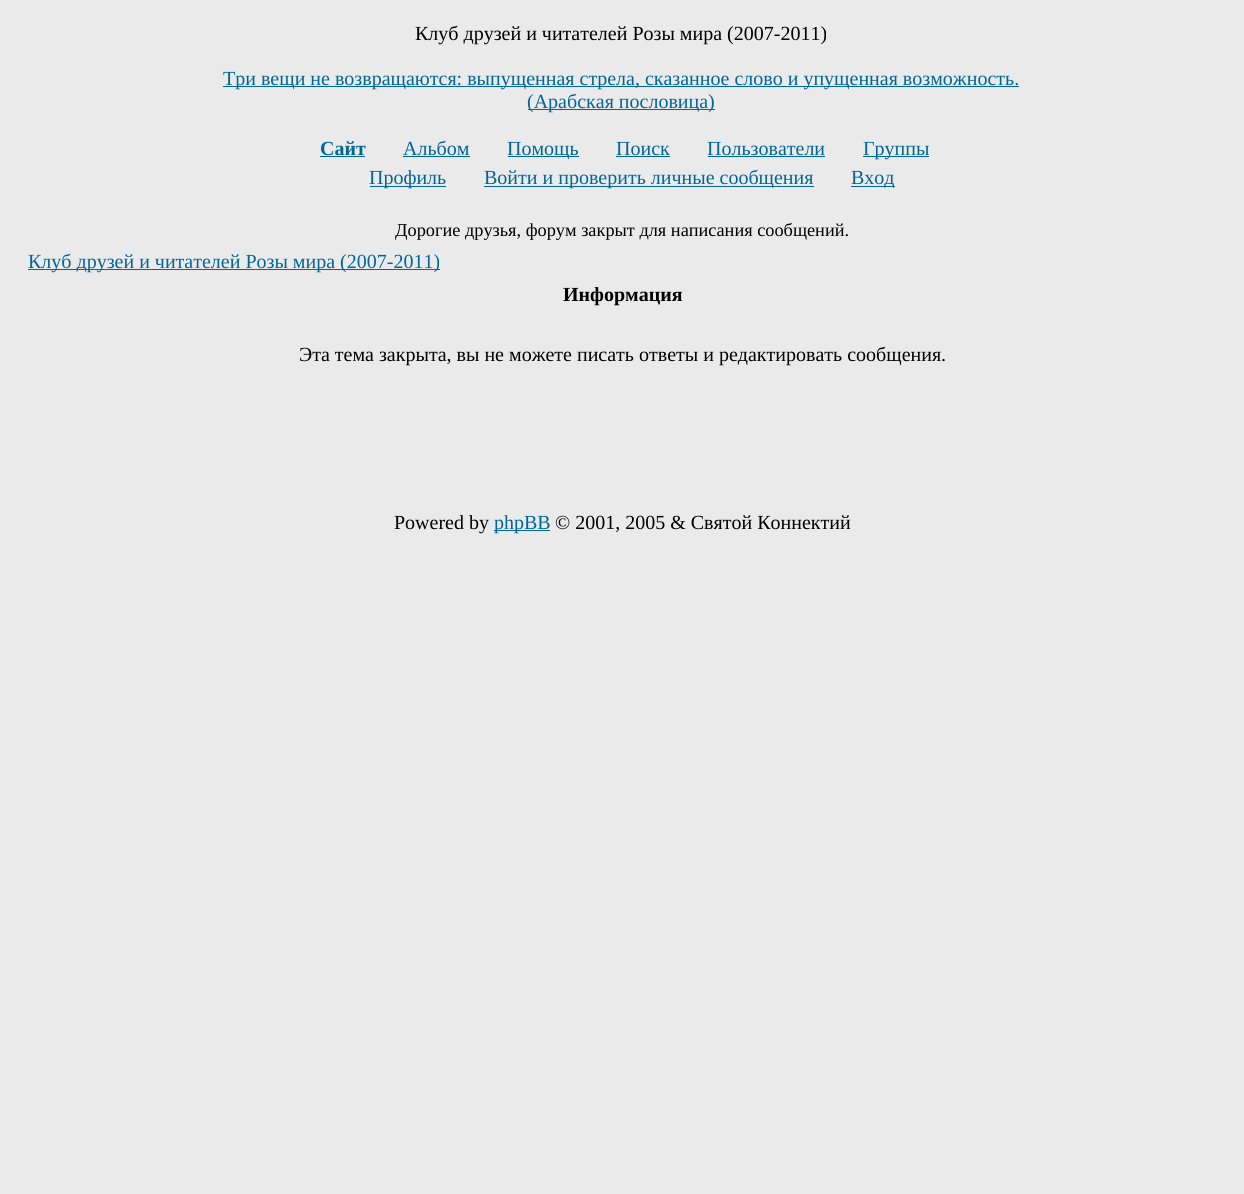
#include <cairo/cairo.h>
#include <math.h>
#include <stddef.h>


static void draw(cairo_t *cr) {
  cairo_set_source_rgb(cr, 234 / 255.0, 234 / 255.0, 234 / 255.0);
  cairo_paint(cr);
  cairo_set_source_rgb(cr, 0, 102 / 255.0, 153 / 255.0);
  cairo_rectangle(cr, 223, 86, 796, 1);
  cairo_fill(cr);
  cairo_rectangle(cr, 528, 109, 187, 1);
  cairo_fill(cr);
  cairo_rectangle(cr, 320, 156, 45, 1);
  cairo_fill(cr);
  cairo_rectangle(cr, 403, 156, 67, 1);
  cairo_fill(cr);
  cairo_rectangle(cr, 508, 156, 71, 1);
  cairo_fill(cr);
  cairo_rectangle(cr, 616, 156, 54, 1);
  cairo_fill(cr);
  cairo_rectangle(cr, 708, 156, 117, 1);
  cairo_fill(cr);
  cairo_rectangle(cr, 863, 156, 66, 1);
  cairo_fill(cr);
  cairo_rectangle(cr, 370, 186, 76, 1);
  cairo_fill(cr);
  cairo_rectangle(cr, 484, 186, 330, 1);
  cairo_fill(cr);
  cairo_rectangle(cr, 851, 186, 44, 1);
  cairo_fill(cr);
  cairo_rectangle(cr, 28, 269, 412, 1);
  cairo_fill(cr);
  cairo_rectangle(cr, 494, 530, 56, 1);
  cairo_fill(cr);
  cairo_select_font_face(cr, "Liberation Serif", CAIRO_FONT_SLANT_NORMAL, CAIRO_FONT_WEIGHT_NORMAL);
  cairo_set_font_size(cr, 20);
  cairo_set_source_rgb(cr, 0, 0, 0);
  cairo_move_to(cr, 415, 40);
  cairo_show_text(cr, "Клуб друзей и читателей Розы мира (2007-2011)");
  cairo_set_source_rgb(cr, 0, 102 / 255.0, 153 / 255.0);
  cairo_move_to(cr, 223, 85);
  cairo_show_text(cr, "Три вещи не возвращаются: выпущенная стрела, сказанное слово и упущенная возможность.");
  cairo_move_to(cr, 527, 108);
  cairo_show_text(cr, "(Арабская пословица)");
  cairo_select_font_face(cr, "Liberation Serif", CAIRO_FONT_SLANT_NORMAL, CAIRO_FONT_WEIGHT_BOLD);
  cairo_move_to(cr, 320, 155);
  cairo_show_text(cr, "Сайт");
  cairo_select_font_face(cr, "Liberation Serif", CAIRO_FONT_SLANT_NORMAL, CAIRO_FONT_WEIGHT_NORMAL);
  cairo_move_to(cr, 403, 155);
  cairo_show_text(cr, "Альбом");
  cairo_move_to(cr, 507, 155);
  cairo_show_text(cr, "Помощь");
  cairo_move_to(cr, 616, 155);
  cairo_show_text(cr, "Поиск");
  cairo_move_to(cr, 707, 155);
  cairo_show_text(cr, "Пользователи");
  cairo_move_to(cr, 863, 155);
  cairo_show_text(cr, "Группы");
  cairo_move_to(cr, 369, 184);
  cairo_show_text(cr, "Профиль");
  cairo_move_to(cr, 484, 184);
  cairo_show_text(cr, "Войти и проверить личные сообщения");
  cairo_move_to(cr, 851, 184);
  cairo_show_text(cr, "Вход");
  cairo_set_font_size(cr, 18.3);
  cairo_set_source_rgb(cr, 0, 0, 0);
  cairo_move_to(cr, 395, 236);
  cairo_show_text(cr, "Дорогие друзья, форум закрыт для написания сообщений.");
  cairo_set_font_size(cr, 20);
  cairo_set_source_rgb(cr, 0, 102 / 255.0, 153 / 255.0);
  cairo_move_to(cr, 28, 268);
  cairo_show_text(cr, "Клуб друзей и читателей Розы мира (2007-2011)");
  cairo_select_font_face(cr, "Liberation Serif", CAIRO_FONT_SLANT_NORMAL, CAIRO_FONT_WEIGHT_BOLD);
  cairo_set_source_rgb(cr, 0, 0, 0);
  cairo_move_to(cr, 563, 301);
  cairo_show_text(cr, "Информация");
  cairo_select_font_face(cr, "Liberation Serif", CAIRO_FONT_SLANT_NORMAL, CAIRO_FONT_WEIGHT_NORMAL);
  cairo_move_to(cr, 299, 361);
  cairo_show_text(cr, "Эта тема закрыта, вы не можете писать ответы и редактировать сообщения.");
  cairo_move_to(cr, 394, 529);
  cairo_show_text(cr, "Powered by");
  cairo_set_source_rgb(cr, 0, 102 / 255.0, 153 / 255.0);
  cairo_move_to(cr, 494, 529);
  cairo_show_text(cr, "phpBB");
  cairo_set_source_rgb(cr, 0, 0, 0);
  cairo_move_to(cr, 555, 529);
  cairo_show_text(cr, "© 2001, 2005 & Святой Коннектий");
}

int main(void) {
  cairo_surface_t *surface = cairo_image_surface_create(CAIRO_FORMAT_RGB24, 1244, 1194);
  cairo_t *cr = cairo_create(surface);
  cairo_font_options_t *options = cairo_font_options_create();
  cairo_font_options_set_hint_metrics(options, CAIRO_HINT_METRICS_OFF);
  cairo_font_options_set_hint_style(options, CAIRO_HINT_STYLE_NONE);
  cairo_set_font_options(cr, options);
  cairo_set_miter_limit(cr, 4);
  draw(cr);
  cairo_surface_write_to_png(surface, "out.png");
  cairo_font_options_destroy(options);
  cairo_destroy(cr);
  cairo_surface_destroy(surface);
  return 0;
}
